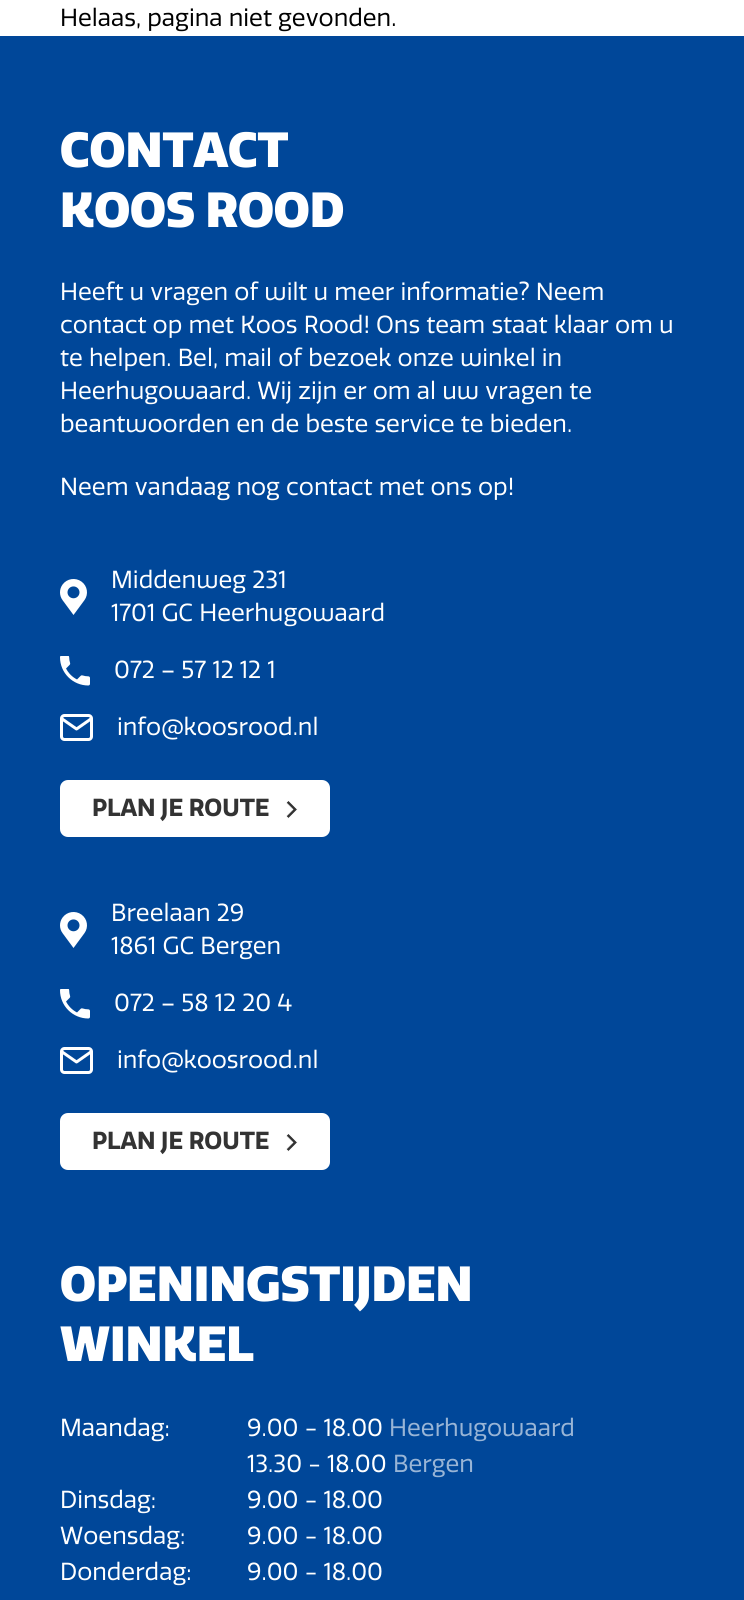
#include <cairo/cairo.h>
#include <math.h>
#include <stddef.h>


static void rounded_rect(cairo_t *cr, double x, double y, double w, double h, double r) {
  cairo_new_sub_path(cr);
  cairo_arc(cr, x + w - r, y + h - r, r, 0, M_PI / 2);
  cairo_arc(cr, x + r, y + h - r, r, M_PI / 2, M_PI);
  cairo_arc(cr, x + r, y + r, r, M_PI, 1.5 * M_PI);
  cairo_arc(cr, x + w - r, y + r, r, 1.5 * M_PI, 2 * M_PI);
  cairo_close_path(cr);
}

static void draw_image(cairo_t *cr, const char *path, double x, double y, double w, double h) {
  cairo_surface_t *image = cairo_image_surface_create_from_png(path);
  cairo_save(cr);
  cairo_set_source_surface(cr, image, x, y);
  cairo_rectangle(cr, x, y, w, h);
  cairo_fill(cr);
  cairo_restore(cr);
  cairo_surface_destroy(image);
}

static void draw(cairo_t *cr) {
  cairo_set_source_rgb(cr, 1, 1, 1);
  cairo_paint(cr);
  cairo_set_source_rgb(cr, 0, 71 / 255.0, 153 / 255.0);
  cairo_rectangle(cr, 0, 36, 744, 1564);
  cairo_fill(cr);
  draw_image(cr, "images/1.png", 60, 579, 27, 36);
  draw_image(cr, "images/2.png", 60, 656, 30, 30);
  draw_image(cr, "images/3.png", 60, 714, 33, 27);
  cairo_set_source_rgb(cr, 1, 1, 1);
  rounded_rect(cr, 60, 780, 270, 57, 8);
  cairo_fill(cr);
  draw_image(cr, "images/4.png", 286, 801, 12, 18);
  draw_image(cr, "images/1.png", 60, 912, 27, 36);
  draw_image(cr, "images/2.png", 60, 989, 30, 30);
  draw_image(cr, "images/3.png", 60, 1047, 33, 27);
  rounded_rect(cr, 60, 1113, 270, 57, 8);
  cairo_fill(cr);
  draw_image(cr, "images/4.png", 286, 1134, 12, 18);
  cairo_select_font_face(cr, "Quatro", CAIRO_FONT_SLANT_NORMAL, CAIRO_FONT_WEIGHT_NORMAL);
  cairo_set_font_size(cr, 24);
  cairo_set_source_rgb(cr, 0, 0, 0);
  cairo_move_to(cr, 60, 26);
  cairo_show_text(cr, "Helaas, pagina niet gevonden.");
  cairo_select_font_face(cr, "Quatro Black", CAIRO_FONT_SLANT_NORMAL, CAIRO_FONT_WEIGHT_NORMAL);
  cairo_set_font_size(cr, 48);
  cairo_set_source_rgb(cr, 1, 1, 1);
  cairo_move_to(cr, 60, 167);
  cairo_show_text(cr, "CONTACT");
  cairo_move_to(cr, 60, 227);
  cairo_show_text(cr, "KOOS ROOD");
  cairo_select_font_face(cr, "Quatro", CAIRO_FONT_SLANT_NORMAL, CAIRO_FONT_WEIGHT_NORMAL);
  cairo_set_font_size(cr, 24);
  cairo_move_to(cr, 60, 300);
  cairo_show_text(cr, "Heeft u vragen of wilt u meer informatie? Neem");
  cairo_move_to(cr, 60, 333);
  cairo_show_text(cr, "contact op met Koos Rood! Ons team staat klaar om u");
  cairo_move_to(cr, 60, 366);
  cairo_show_text(cr, "te helpen. Bel, mail of bezoek onze winkel in");
  cairo_move_to(cr, 60, 399);
  cairo_show_text(cr, "Heerhugowaard. Wij zijn er om al uw vragen te");
  cairo_move_to(cr, 60, 432);
  cairo_show_text(cr, "beantwoorden en de beste service te bieden.");
  cairo_move_to(cr, 60, 495);
  cairo_show_text(cr, "Neem vandaag nog contact met ons op!");
  cairo_move_to(cr, 111, 588);
  cairo_show_text(cr, "Middenweg 231");
  cairo_move_to(cr, 111, 621);
  cairo_show_text(cr, "1701 GC Heerhugowaard");
  cairo_move_to(cr, 114, 678);
  cairo_show_text(cr, "072 – 57 12 12 1");
  cairo_move_to(cr, 117, 735);
  cairo_show_text(cr, "info@koosrood.nl");
  cairo_select_font_face(cr, "Quatro", CAIRO_FONT_SLANT_NORMAL, CAIRO_FONT_WEIGHT_BOLD);
  cairo_set_source_rgb(cr, 51 / 255.0, 51 / 255.0, 51 / 255.0);
  cairo_move_to(cr, 92, 816);
  cairo_show_text(cr, "PLAN JE ROUTE");
  cairo_select_font_face(cr, "Quatro", CAIRO_FONT_SLANT_NORMAL, CAIRO_FONT_WEIGHT_NORMAL);
  cairo_set_source_rgb(cr, 1, 1, 1);
  cairo_move_to(cr, 111, 921);
  cairo_show_text(cr, "Breelaan 29");
  cairo_move_to(cr, 111, 954);
  cairo_show_text(cr, "1861 GC Bergen");
  cairo_move_to(cr, 114, 1011);
  cairo_show_text(cr, "072 – 58 12 20 4");
  cairo_move_to(cr, 117, 1068);
  cairo_show_text(cr, "info@koosrood.nl");
  cairo_select_font_face(cr, "Quatro", CAIRO_FONT_SLANT_NORMAL, CAIRO_FONT_WEIGHT_BOLD);
  cairo_set_source_rgb(cr, 51 / 255.0, 51 / 255.0, 51 / 255.0);
  cairo_move_to(cr, 92, 1149);
  cairo_show_text(cr, "PLAN JE ROUTE");
  cairo_select_font_face(cr, "Quatro Black", CAIRO_FONT_SLANT_NORMAL, CAIRO_FONT_WEIGHT_NORMAL);
  cairo_set_font_size(cr, 48);
  cairo_set_source_rgb(cr, 1, 1, 1);
  cairo_move_to(cr, 60, 1301);
  cairo_show_text(cr, "OPENINGSTIJDEN");
  cairo_move_to(cr, 60, 1361);
  cairo_show_text(cr, "WINKEL");
  cairo_select_font_face(cr, "Quatro", CAIRO_FONT_SLANT_NORMAL, CAIRO_FONT_WEIGHT_NORMAL);
  cairo_set_font_size(cr, 24);
  cairo_move_to(cr, 60, 1436);
  cairo_show_text(cr, "Maandag:");
  cairo_move_to(cr, 247, 1436);
  cairo_show_text(cr, "9.00 - 18.00");
  cairo_set_source_rgb(cr, 153 / 255.0, 181 / 255.0, 214 / 255.0);
  cairo_move_to(cr, 389, 1436);
  cairo_show_text(cr, "Heerhugowaard");
  cairo_set_source_rgb(cr, 1, 1, 1);
  cairo_move_to(cr, 247, 1472);
  cairo_show_text(cr, "13.30 - 18.00");
  cairo_set_source_rgb(cr, 153 / 255.0, 181 / 255.0, 214 / 255.0);
  cairo_move_to(cr, 393, 1472);
  cairo_show_text(cr, "Bergen");
  cairo_set_source_rgb(cr, 1, 1, 1);
  cairo_move_to(cr, 60, 1508);
  cairo_show_text(cr, "Dinsdag:");
  cairo_move_to(cr, 247, 1508);
  cairo_show_text(cr, "9.00 - 18.00");
  cairo_move_to(cr, 60, 1544);
  cairo_show_text(cr, "Woensdag:");
  cairo_move_to(cr, 247, 1544);
  cairo_show_text(cr, "9.00 - 18.00");
  cairo_move_to(cr, 60, 1580);
  cairo_show_text(cr, "Donderdag:");
  cairo_move_to(cr, 247, 1580);
  cairo_show_text(cr, "9.00 - 18.00");
}

int main(void) {
  cairo_surface_t *surface = cairo_image_surface_create(CAIRO_FORMAT_RGB24, 744, 1600);
  cairo_t *cr = cairo_create(surface);
  cairo_font_options_t *options = cairo_font_options_create();
  cairo_font_options_set_hint_metrics(options, CAIRO_HINT_METRICS_OFF);
  cairo_font_options_set_hint_style(options, CAIRO_HINT_STYLE_NONE);
  cairo_set_font_options(cr, options);
  cairo_set_miter_limit(cr, 4);
  draw(cr);
  cairo_surface_write_to_png(surface, "out.png");
  cairo_font_options_destroy(options);
  cairo_destroy(cr);
  cairo_surface_destroy(surface);
  return 0;
}
